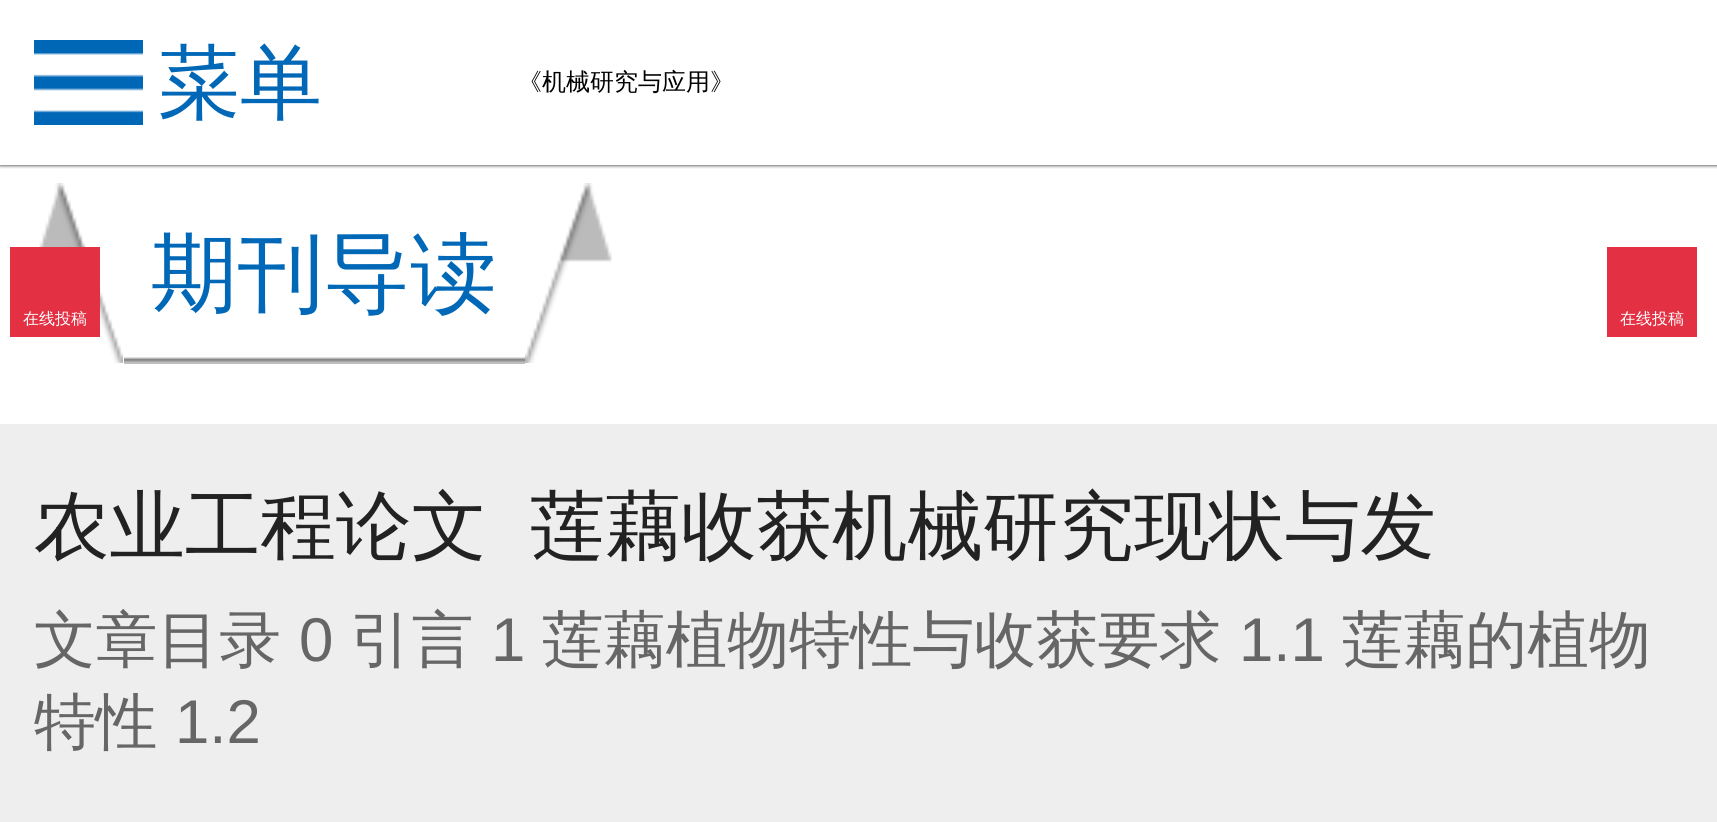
#include <cairo/cairo.h>
#include <math.h>
#include <stddef.h>


static void rounded_rect(cairo_t *cr, double x, double y, double w, double h, double r) {
  cairo_new_sub_path(cr);
  cairo_arc(cr, x + w - r, y + h - r, r, 0, M_PI / 2);
  cairo_arc(cr, x + r, y + h - r, r, M_PI / 2, M_PI);
  cairo_arc(cr, x + r, y + r, r, M_PI, 1.5 * M_PI);
  cairo_arc(cr, x + w - r, y + r, r, 1.5 * M_PI, 2 * M_PI);
  cairo_close_path(cr);
}

static void draw_shadow(cairo_t *cr, double x, double y, double w, double h, double r, double blur, double alpha) {
  cairo_push_group_with_content(cr, CAIRO_CONTENT_ALPHA);
  cairo_set_operator(cr, CAIRO_OPERATOR_SOURCE);
  for (int i = 15; i >= -15 && fmin(w, h) + blur * i / 3 > 0; i -= 2) {
    double e = blur * i / 6;
    cairo_set_source_rgba(cr, 0, 0, 0, alpha * erfc((i - 1) / 8.5) / 2);
    rounded_rect(cr, x - e, y - e, w + 2 * e, h + 2 * e, fmax(0, fmin(r + e + blur * .6, fmin(w, h) / 2 + e)));
    cairo_fill(cr);
  }
  cairo_pattern_t *soft = cairo_pop_group(cr);
  cairo_mask(cr, soft);
  cairo_pattern_destroy(soft);
}

static void draw_image(cairo_t *cr, const char *path, double x, double y, double w, double h) {
  cairo_surface_t *image = cairo_image_surface_create_from_png(path);
  cairo_save(cr);
  cairo_set_source_surface(cr, image, x, y);
  cairo_rectangle(cr, x, y, w, h);
  cairo_fill(cr);
  cairo_restore(cr);
  cairo_surface_destroy(image);
}

static void draw(cairo_t *cr) {
  cairo_set_source_rgb(cr, 1, 1, 1);
  cairo_paint(cr);
  cairo_save(cr);
  cairo_rectangle(cr, 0, 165, 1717, 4);
  cairo_clip(cr);
  cairo_set_source_rgb(cr, 0, 0, 0);
  draw_shadow(cr, 0, 1, 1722, 165, 0, 1.5, 0.6);
  cairo_restore(cr);
  draw_image(cr, "images/1.png", 34, 40, 109, 85);
  draw_image(cr, "images/2.png", 39, 183, 84, 180);
  draw_image(cr, "images/3.png", 124, 357, 401, 7);
  draw_image(cr, "images/4.png", 525, 183, 87, 180);
  cairo_set_source_rgb(cr, 238 / 255.0, 238 / 255.0, 238 / 255.0);
  cairo_rectangle(cr, 0, 424, 1717, 398);
  cairo_fill(cr);
  cairo_set_source_rgb(cr, 227 / 255.0, 48 / 255.0, 67 / 255.0);
  cairo_rectangle(cr, 10, 247, 90, 90);
  cairo_fill(cr);
  cairo_rectangle(cr, 1607, 247, 90, 90);
  cairo_fill(cr);
  cairo_select_font_face(cr, "WenQuanYi Zen Hei Medium", CAIRO_FONT_SLANT_NORMAL, CAIRO_FONT_WEIGHT_NORMAL);
  cairo_set_font_size(cr, 82);
  cairo_set_source_rgb(cr, 0, 104 / 255.0, 183 / 255.0);
  cairo_move_to(cr, 158, 111);
  cairo_show_text(cr, "菜单");
  cairo_set_font_size(cr, 24);
  cairo_set_source_rgb(cr, 0, 0, 0);
  cairo_move_to(cr, 518, 90);
  cairo_show_text(cr, "《机械研究与应用》");
  cairo_set_font_size(cr, 86.5);
  cairo_set_source_rgb(cr, 0, 104 / 255.0, 183 / 255.0);
  cairo_move_to(cr, 151, 303);
  cairo_show_text(cr, "期刊导读");
  cairo_set_font_size(cr, 75.5);
  cairo_set_source_rgb(cr, 34 / 255.0, 34 / 255.0, 34 / 255.0);
  cairo_move_to(cr, 34, 552);
  cairo_show_text(cr, "农业工程论文");
  cairo_move_to(cr, 530, 552);
  cairo_show_text(cr, "莲藕收获机械研究现状与发");
  cairo_set_font_size(cr, 61.75);
  cairo_set_source_rgb(cr, 102 / 255.0, 102 / 255.0, 102 / 255.0);
  cairo_move_to(cr, 34, 661);
  cairo_show_text(cr, "文章目录");
  cairo_select_font_face(cr, "Liberation Sans", CAIRO_FONT_SLANT_NORMAL, CAIRO_FONT_WEIGHT_NORMAL);
  cairo_move_to(cr, 299, 661);
  cairo_show_text(cr, "0");
  cairo_select_font_face(cr, "WenQuanYi Zen Hei Medium", CAIRO_FONT_SLANT_NORMAL, CAIRO_FONT_WEIGHT_NORMAL);
  cairo_move_to(cr, 350, 661);
  cairo_show_text(cr, "引言");
  cairo_select_font_face(cr, "Liberation Sans", CAIRO_FONT_SLANT_NORMAL, CAIRO_FONT_WEIGHT_NORMAL);
  cairo_move_to(cr, 491, 661);
  cairo_show_text(cr, "1");
  cairo_select_font_face(cr, "WenQuanYi Zen Hei Medium", CAIRO_FONT_SLANT_NORMAL, CAIRO_FONT_WEIGHT_NORMAL);
  cairo_move_to(cr, 542, 661);
  cairo_show_text(cr, "莲藕植物特性与收获要求");
  cairo_select_font_face(cr, "Liberation Sans", CAIRO_FONT_SLANT_NORMAL, CAIRO_FONT_WEIGHT_NORMAL);
  cairo_move_to(cr, 1239, 661);
  cairo_show_text(cr, "1.1");
  cairo_select_font_face(cr, "WenQuanYi Zen Hei Medium", CAIRO_FONT_SLANT_NORMAL, CAIRO_FONT_WEIGHT_NORMAL);
  cairo_move_to(cr, 1342, 661);
  cairo_show_text(cr, "莲藕的植物");
  cairo_move_to(cr, 34, 743);
  cairo_show_text(cr, "特性");
  cairo_select_font_face(cr, "Liberation Sans", CAIRO_FONT_SLANT_NORMAL, CAIRO_FONT_WEIGHT_NORMAL);
  cairo_move_to(cr, 175, 743);
  cairo_show_text(cr, "1.2");
  cairo_select_font_face(cr, "WenQuanYi Zen Hei Medium", CAIRO_FONT_SLANT_NORMAL, CAIRO_FONT_WEIGHT_NORMAL);
  cairo_set_font_size(cr, 16);
  cairo_set_source_rgb(cr, 1, 1, 1);
  cairo_move_to(cr, 23, 324);
  cairo_show_text(cr, "在线投稿");
  cairo_move_to(cr, 1620, 324);
  cairo_show_text(cr, "在线投稿");
}

int main(void) {
  cairo_surface_t *surface = cairo_image_surface_create(CAIRO_FORMAT_RGB24, 1717, 822);
  cairo_t *cr = cairo_create(surface);
  cairo_font_options_t *options = cairo_font_options_create();
  cairo_font_options_set_hint_metrics(options, CAIRO_HINT_METRICS_OFF);
  cairo_font_options_set_hint_style(options, CAIRO_HINT_STYLE_NONE);
  cairo_set_font_options(cr, options);
  cairo_set_miter_limit(cr, 4);
  draw(cr);
  cairo_surface_write_to_png(surface, "out.png");
  cairo_font_options_destroy(options);
  cairo_destroy(cr);
  cairo_surface_destroy(surface);
  return 0;
}
